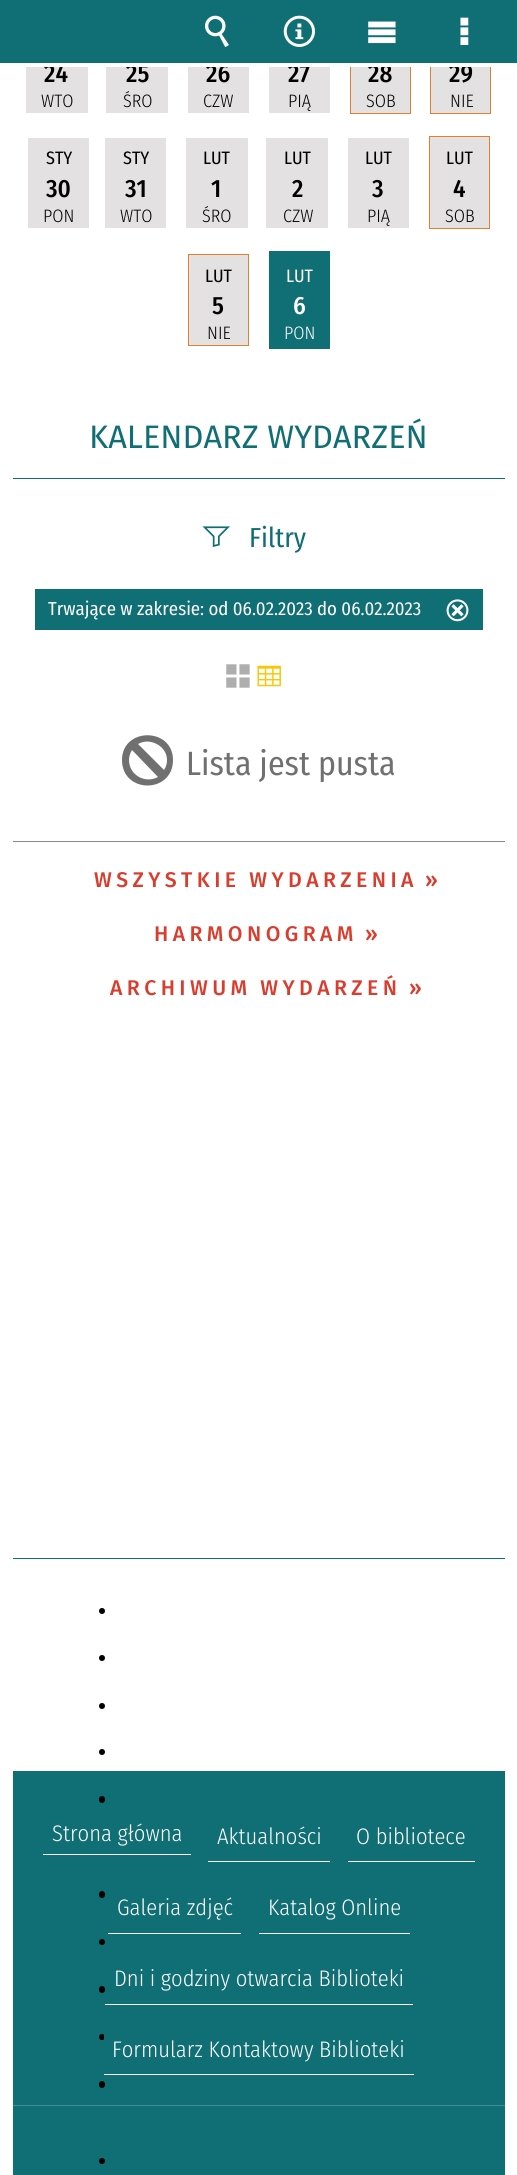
#include <cairo/cairo.h>
#include <math.h>
#include <stddef.h>


static void draw_spaced(cairo_t *cr, double x, double y, const char *s, double letter, double word) {
  cairo_move_to(cr, x, y);
  while (*s) {
    char ch[5] = {0};
    int n = 0;
    do ch[n++] = *s++; while ((*s & 0xC0) == 0x80);
    cairo_show_text(cr, ch);
    cairo_rel_move_to(cr, letter + word * (*ch == ' '), 0);
  }
}

static void rounded_rect(cairo_t *cr, double x, double y, double w, double h, double r) {
  cairo_new_sub_path(cr);
  cairo_arc(cr, x + w - r, y + h - r, r, 0, M_PI / 2);
  cairo_arc(cr, x + r, y + h - r, r, M_PI / 2, M_PI);
  cairo_arc(cr, x + r, y + r, r, M_PI, 1.5 * M_PI);
  cairo_arc(cr, x + w - r, y + r, r, 1.5 * M_PI, 2 * M_PI);
  cairo_close_path(cr);
}

static void draw_image(cairo_t *cr, const char *path, double x, double y, double w, double h) {
  cairo_surface_t *image = cairo_image_surface_create_from_png(path);
  cairo_save(cr);
  cairo_set_source_surface(cr, image, x, y);
  cairo_rectangle(cr, x, y, w, h);
  cairo_fill(cr);
  cairo_restore(cr);
  cairo_surface_destroy(image);
}

static void draw(cairo_t *cr) {
  cairo_set_source_rgb(cr, 1, 1, 1);
  cairo_paint(cr);
  cairo_set_source_rgb(cr, 227 / 255.0, 225 / 255.0, 226 / 255.0);
  cairo_rectangle(cr, 351, 67, 59, 46);
  cairo_fill(cr);
  cairo_rectangle(cr, 350.5, 21.5, 60, 92);
  cairo_set_source_rgb(cr, 226 / 255.0, 127 / 255.0, 46 / 255.0);
  cairo_set_line_width(cr, 1);
  cairo_stroke(cr);
  cairo_set_source_rgb(cr, 227 / 255.0, 225 / 255.0, 226 / 255.0);
  cairo_rectangle(cr, 431, 67, 59, 46);
  cairo_fill(cr);
  cairo_rectangle(cr, 430.5, 21.5, 60, 92);
  cairo_set_source_rgb(cr, 226 / 255.0, 127 / 255.0, 46 / 255.0);
  cairo_stroke(cr);
  cairo_set_source_rgb(cr, 16 / 255.0, 110 / 255.0, 117 / 255.0);
  cairo_rectangle(cr, 0, 0, 517, 63);
  cairo_fill(cr);
  draw_image(cr, "images/1.png", 205, 15, 24, 32);
  draw_image(cr, "images/2.png", 283, 15, 32, 32);
  draw_image(cr, "images/3.png", 368, 21, 28, 23);
  draw_image(cr, "images/4.png", 460, 17, 9, 28);
  cairo_set_source_rgb(cr, 227 / 255.0, 225 / 255.0, 226 / 255.0);
  cairo_rectangle(cr, 26, 67, 62, 46);
  cairo_fill(cr);
  cairo_rectangle(cr, 106, 67, 62, 46);
  cairo_fill(cr);
  cairo_rectangle(cr, 188, 67, 61, 46);
  cairo_fill(cr);
  cairo_rectangle(cr, 269, 67, 61, 46);
  cairo_fill(cr);
  cairo_rectangle(cr, 28, 138, 61, 90);
  cairo_fill(cr);
  cairo_rectangle(cr, 105, 138, 61, 90);
  cairo_fill(cr);
  cairo_rectangle(cr, 186, 138, 62, 90);
  cairo_fill(cr);
  cairo_rectangle(cr, 266, 138, 62, 90);
  cairo_fill(cr);
  cairo_rectangle(cr, 348, 138, 61, 90);
  cairo_fill(cr);
  cairo_rectangle(cr, 429.5, 136.5, 60, 92);
  cairo_fill_preserve(cr);
  cairo_set_source_rgb(cr, 226 / 255.0, 127 / 255.0, 46 / 255.0);
  cairo_stroke(cr);
  cairo_set_source_rgb(cr, 227 / 255.0, 225 / 255.0, 226 / 255.0);
  cairo_rectangle(cr, 188.5, 254.5, 60, 91);
  cairo_fill_preserve(cr);
  cairo_set_source_rgb(cr, 226 / 255.0, 127 / 255.0, 46 / 255.0);
  cairo_stroke(cr);
  cairo_set_source_rgb(cr, 16 / 255.0, 110 / 255.0, 117 / 255.0);
  cairo_rectangle(cr, 269, 251, 61, 98);
  cairo_fill(cr);
  cairo_rectangle(cr, 13, 478, 492, 1);
  cairo_fill(cr);
  draw_image(cr, "images/5.png", 202, 526, 28, 21);
  cairo_rectangle(cr, 35, 589, 448, 41);
  cairo_fill(cr);
  draw_image(cr, "images/6.png", 446, 599, 23, 23);
  draw_image(cr, "images/7.png", 226, 664, 24, 24);
  draw_image(cr, "images/8.png", 257, 665, 24, 22);
  cairo_set_source_rgb(cr, 112 / 255.0, 112 / 255.0, 112 / 255.0);
  cairo_new_path(cr);
  cairo_move_to(cr, 122, 760);
  cairo_curve_to(cr, 122, 727, 173, 727, 173, 760);
  cairo_curve_to(cr, 173, 794, 122, 794, 122, 760);
  cairo_close_path(cr);
  cairo_move_to(cr, 167, 760);
  cairo_curve_to(cr, 167, 746, 150, 737, 138, 744);
  cairo_line_to(cr, 164, 770);
  cairo_curve_to(cr, 166, 767, 167, 764, 167, 760);
  cairo_close_path(cr);
  cairo_move_to(cr, 129, 760);
  cairo_curve_to(cr, 129, 775, 145, 784, 158, 777);
  cairo_line_to(cr, 132, 750);
  cairo_curve_to(cr, 130, 753, 129, 757, 129, 760);
  cairo_close_path(cr);
  cairo_fill(cr);
  cairo_set_source_rgb(cr, 137 / 255.0, 137 / 255.0, 137 / 255.0);
  cairo_rectangle(cr, 13, 841, 492, 1);
  cairo_fill(cr);
  cairo_set_source_rgb(cr, 16 / 255.0, 110 / 255.0, 117 / 255.0);
  cairo_rectangle(cr, 13, 1558, 492, 1);
  cairo_fill(cr);
  cairo_set_source_rgb(cr, 0, 0, 0);
  cairo_arc(cr, 102, 1611, 3, 0, 2 * M_PI);
  cairo_fill(cr);
  cairo_arc(cr, 102, 1658, 3, 0, 2 * M_PI);
  cairo_fill(cr);
  cairo_arc(cr, 102, 1706, 3, 0, 2 * M_PI);
  cairo_fill(cr);
  cairo_arc(cr, 102, 1752, 3, 0, 2 * M_PI);
  cairo_fill(cr);
  cairo_set_source_rgb(cr, 16 / 255.0, 110 / 255.0, 117 / 255.0);
  cairo_rectangle(cr, 13, 1771, 492, 404);
  cairo_fill(cr);
  cairo_set_source_rgb(cr, 0, 0, 0);
  rounded_rect(cr, 99, 1796, 6, 7, 3);
  cairo_fill(cr);
  rounded_rect(cr, 99, 1891, 6, 7, 3);
  cairo_fill(cr);
  cairo_arc(cr, 102, 1942, 3, 0, 2 * M_PI);
  cairo_fill(cr);
  rounded_rect(cr, 99, 1986, 6, 7, 3);
  cairo_fill(cr);
  cairo_arc(cr, 102, 2037, 3, 0, 2 * M_PI);
  cairo_fill(cr);
  rounded_rect(cr, 99, 2081, 6, 7, 3);
  cairo_fill(cr);
  cairo_arc(cr, 102, 2161, 3, 0, 2 * M_PI);
  cairo_fill(cr);
  cairo_set_source_rgb(cr, 1, 1, 1);
  cairo_rectangle(cr, 43, 1854, 148, 1);
  cairo_fill(cr);
  cairo_rectangle(cr, 208, 1861, 122, 1);
  cairo_fill(cr);
  cairo_rectangle(cr, 348, 1861, 127, 1);
  cairo_fill(cr);
  cairo_rectangle(cr, 108, 1933, 133, 1);
  cairo_fill(cr);
  cairo_rectangle(cr, 259, 1933, 151, 1);
  cairo_fill(cr);
  cairo_rectangle(cr, 105, 2004, 308, 1);
  cairo_fill(cr);
  cairo_rectangle(cr, 104, 2074, 310, 1);
  cairo_fill(cr);
  cairo_set_source_rgb(cr, 16 / 255.0, 110 / 255.0, 117 / 255.0);
  cairo_rectangle(cr, 104, 2034, 1, 6);
  cairo_fill(cr);
  cairo_set_source_rgb(cr, 66 / 255.0, 141 / 255.0, 146 / 255.0);
  cairo_rectangle(cr, 13, 2105, 492, 1);
  cairo_fill(cr);
  cairo_select_font_face(cr, "Fira Sans Condensed Medium", CAIRO_FONT_SLANT_NORMAL, CAIRO_FONT_WEIGHT_NORMAL);
  cairo_set_font_size(cr, 25);
  cairo_set_source_rgb(cr, 0, 0, 0);
  cairo_move_to(cr, 44, 82);
  cairo_show_text(cr, "24");
  cairo_select_font_face(cr, "Fira Sans Condensed Light", CAIRO_FONT_SLANT_NORMAL, CAIRO_FONT_WEIGHT_NORMAL);
  cairo_set_font_size(cr, 18);
  cairo_move_to(cr, 41, 107);
  cairo_show_text(cr, "WTO");
  cairo_select_font_face(cr, "Fira Sans Condensed Medium", CAIRO_FONT_SLANT_NORMAL, CAIRO_FONT_WEIGHT_NORMAL);
  cairo_set_font_size(cr, 25);
  cairo_move_to(cr, 126, 82);
  cairo_show_text(cr, "25");
  cairo_select_font_face(cr, "Fira Sans Condensed Light", CAIRO_FONT_SLANT_NORMAL, CAIRO_FONT_WEIGHT_NORMAL);
  cairo_set_font_size(cr, 18);
  cairo_move_to(cr, 123, 107);
  cairo_show_text(cr, "ŚRO");
  cairo_select_font_face(cr, "Fira Sans Condensed Medium", CAIRO_FONT_SLANT_NORMAL, CAIRO_FONT_WEIGHT_NORMAL);
  cairo_set_font_size(cr, 25);
  cairo_move_to(cr, 206, 82);
  cairo_show_text(cr, "26");
  cairo_select_font_face(cr, "Fira Sans Condensed Light", CAIRO_FONT_SLANT_NORMAL, CAIRO_FONT_WEIGHT_NORMAL);
  cairo_set_font_size(cr, 18);
  cairo_move_to(cr, 203, 107);
  cairo_show_text(cr, "CZW");
  cairo_select_font_face(cr, "Fira Sans Condensed Medium", CAIRO_FONT_SLANT_NORMAL, CAIRO_FONT_WEIGHT_NORMAL);
  cairo_set_font_size(cr, 25);
  cairo_move_to(cr, 288, 82);
  cairo_show_text(cr, "27");
  cairo_select_font_face(cr, "Fira Sans Condensed Light", CAIRO_FONT_SLANT_NORMAL, CAIRO_FONT_WEIGHT_NORMAL);
  cairo_set_font_size(cr, 18);
  cairo_move_to(cr, 288, 107);
  cairo_show_text(cr, "PIĄ");
  cairo_select_font_face(cr, "Fira Sans Condensed Medium", CAIRO_FONT_SLANT_NORMAL, CAIRO_FONT_WEIGHT_NORMAL);
  cairo_set_font_size(cr, 25);
  cairo_move_to(cr, 368, 82);
  cairo_show_text(cr, "28");
  cairo_select_font_face(cr, "Fira Sans Condensed Light", CAIRO_FONT_SLANT_NORMAL, CAIRO_FONT_WEIGHT_NORMAL);
  cairo_set_font_size(cr, 18);
  cairo_move_to(cr, 366, 107);
  cairo_show_text(cr, "SOB");
  cairo_select_font_face(cr, "Fira Sans Condensed Medium", CAIRO_FONT_SLANT_NORMAL, CAIRO_FONT_WEIGHT_NORMAL);
  cairo_set_font_size(cr, 25);
  cairo_move_to(cr, 449, 82);
  cairo_show_text(cr, "29");
  cairo_set_source_rgb(cr, 1, 1, 1);
  cairo_rectangle(cr, 45, 63, 446, 4);
  cairo_fill(cr);
  cairo_select_font_face(cr, "Fira Sans Condensed Light", CAIRO_FONT_SLANT_NORMAL, CAIRO_FONT_WEIGHT_NORMAL);
  cairo_set_font_size(cr, 18);
  cairo_set_source_rgb(cr, 0, 0, 0);
  cairo_move_to(cr, 450, 107);
  cairo_show_text(cr, "NIE");
  cairo_select_font_face(cr, "Fira Sans Condensed", CAIRO_FONT_SLANT_NORMAL, CAIRO_FONT_WEIGHT_NORMAL);
  cairo_move_to(cr, 46, 164);
  cairo_show_text(cr, "STY");
  cairo_select_font_face(cr, "Fira Sans Condensed Medium", CAIRO_FONT_SLANT_NORMAL, CAIRO_FONT_WEIGHT_NORMAL);
  cairo_set_font_size(cr, 25);
  cairo_move_to(cr, 46, 197);
  cairo_show_text(cr, "30");
  cairo_select_font_face(cr, "Fira Sans Condensed Light", CAIRO_FONT_SLANT_NORMAL, CAIRO_FONT_WEIGHT_NORMAL);
  cairo_set_font_size(cr, 18);
  cairo_move_to(cr, 43, 222);
  cairo_show_text(cr, "PON");
  cairo_select_font_face(cr, "Fira Sans Condensed", CAIRO_FONT_SLANT_NORMAL, CAIRO_FONT_WEIGHT_NORMAL);
  cairo_move_to(cr, 123, 164);
  cairo_show_text(cr, "STY");
  cairo_select_font_face(cr, "Fira Sans Condensed Medium", CAIRO_FONT_SLANT_NORMAL, CAIRO_FONT_WEIGHT_NORMAL);
  cairo_set_font_size(cr, 25);
  cairo_move_to(cr, 125, 197);
  cairo_show_text(cr, "31");
  cairo_select_font_face(cr, "Fira Sans Condensed Light", CAIRO_FONT_SLANT_NORMAL, CAIRO_FONT_WEIGHT_NORMAL);
  cairo_set_font_size(cr, 18);
  cairo_move_to(cr, 120, 222);
  cairo_show_text(cr, "WTO");
  cairo_select_font_face(cr, "Fira Sans Condensed", CAIRO_FONT_SLANT_NORMAL, CAIRO_FONT_WEIGHT_NORMAL);
  cairo_move_to(cr, 203, 164);
  cairo_show_text(cr, "LUT");
  cairo_select_font_face(cr, "Fira Sans Condensed Medium", CAIRO_FONT_SLANT_NORMAL, CAIRO_FONT_WEIGHT_NORMAL);
  cairo_set_font_size(cr, 25);
  cairo_move_to(cr, 211, 197);
  cairo_show_text(cr, "1");
  cairo_select_font_face(cr, "Fira Sans Condensed Light", CAIRO_FONT_SLANT_NORMAL, CAIRO_FONT_WEIGHT_NORMAL);
  cairo_set_font_size(cr, 18);
  cairo_move_to(cr, 202, 222);
  cairo_show_text(cr, "ŚRO");
  cairo_select_font_face(cr, "Fira Sans Condensed", CAIRO_FONT_SLANT_NORMAL, CAIRO_FONT_WEIGHT_NORMAL);
  cairo_move_to(cr, 284, 164);
  cairo_show_text(cr, "LUT");
  cairo_select_font_face(cr, "Fira Sans Condensed Medium", CAIRO_FONT_SLANT_NORMAL, CAIRO_FONT_WEIGHT_NORMAL);
  cairo_set_font_size(cr, 25);
  cairo_move_to(cr, 292, 197);
  cairo_show_text(cr, "2");
  cairo_select_font_face(cr, "Fira Sans Condensed Light", CAIRO_FONT_SLANT_NORMAL, CAIRO_FONT_WEIGHT_NORMAL);
  cairo_set_font_size(cr, 18);
  cairo_move_to(cr, 283, 222);
  cairo_show_text(cr, "CZW");
  cairo_select_font_face(cr, "Fira Sans Condensed", CAIRO_FONT_SLANT_NORMAL, CAIRO_FONT_WEIGHT_NORMAL);
  cairo_move_to(cr, 365, 164);
  cairo_show_text(cr, "LUT");
  cairo_select_font_face(cr, "Fira Sans Condensed Medium", CAIRO_FONT_SLANT_NORMAL, CAIRO_FONT_WEIGHT_NORMAL);
  cairo_set_font_size(cr, 25);
  cairo_move_to(cr, 372, 197);
  cairo_show_text(cr, "3");
  cairo_select_font_face(cr, "Fira Sans Condensed Light", CAIRO_FONT_SLANT_NORMAL, CAIRO_FONT_WEIGHT_NORMAL);
  cairo_set_font_size(cr, 18);
  cairo_move_to(cr, 367, 222);
  cairo_show_text(cr, "PIĄ");
  cairo_select_font_face(cr, "Fira Sans Condensed", CAIRO_FONT_SLANT_NORMAL, CAIRO_FONT_WEIGHT_NORMAL);
  cairo_move_to(cr, 446, 164);
  cairo_show_text(cr, "LUT");
  cairo_select_font_face(cr, "Fira Sans Condensed Medium", CAIRO_FONT_SLANT_NORMAL, CAIRO_FONT_WEIGHT_NORMAL);
  cairo_set_font_size(cr, 25);
  cairo_move_to(cr, 453, 197);
  cairo_show_text(cr, "4");
  cairo_select_font_face(cr, "Fira Sans Condensed Light", CAIRO_FONT_SLANT_NORMAL, CAIRO_FONT_WEIGHT_NORMAL);
  cairo_set_font_size(cr, 18);
  cairo_move_to(cr, 445, 222);
  cairo_show_text(cr, "SOB");
  cairo_select_font_face(cr, "Fira Sans Condensed", CAIRO_FONT_SLANT_NORMAL, CAIRO_FONT_WEIGHT_NORMAL);
  cairo_move_to(cr, 205, 282);
  cairo_show_text(cr, "LUT");
  cairo_select_font_face(cr, "Fira Sans Condensed Medium", CAIRO_FONT_SLANT_NORMAL, CAIRO_FONT_WEIGHT_NORMAL);
  cairo_set_font_size(cr, 25);
  cairo_move_to(cr, 212, 314);
  cairo_show_text(cr, "5");
  cairo_select_font_face(cr, "Fira Sans Condensed Light", CAIRO_FONT_SLANT_NORMAL, CAIRO_FONT_WEIGHT_NORMAL);
  cairo_set_font_size(cr, 18);
  cairo_move_to(cr, 207, 339);
  cairo_show_text(cr, "NIE");
  cairo_select_font_face(cr, "Fira Sans Condensed", CAIRO_FONT_SLANT_NORMAL, CAIRO_FONT_WEIGHT_NORMAL);
  cairo_set_source_rgb(cr, 1, 1, 1);
  cairo_move_to(cr, 286, 282);
  cairo_show_text(cr, "LUT");
  cairo_select_font_face(cr, "Fira Sans Condensed Medium", CAIRO_FONT_SLANT_NORMAL, CAIRO_FONT_WEIGHT_NORMAL);
  cairo_set_font_size(cr, 25);
  cairo_move_to(cr, 293, 314);
  cairo_show_text(cr, "6");
  cairo_select_font_face(cr, "Fira Sans Condensed Light", CAIRO_FONT_SLANT_NORMAL, CAIRO_FONT_WEIGHT_NORMAL);
  cairo_set_font_size(cr, 18);
  cairo_move_to(cr, 284, 339);
  cairo_show_text(cr, "PON");
  cairo_select_font_face(cr, "Fira Sans", CAIRO_FONT_SLANT_NORMAL, CAIRO_FONT_WEIGHT_NORMAL);
  cairo_set_font_size(cr, 32.5);
  cairo_set_source_rgb(cr, 16 / 255.0, 110 / 255.0, 117 / 255.0);
  cairo_move_to(cr, 89, 448);
  cairo_show_text(cr, "KALENDARZ WYDARZEŃ");
  cairo_select_font_face(cr, "Fira Sans Condensed", CAIRO_FONT_SLANT_NORMAL, CAIRO_FONT_WEIGHT_NORMAL);
  cairo_set_font_size(cr, 27.5);
  cairo_move_to(cr, 249, 547);
  cairo_show_text(cr, "Filtry");
  cairo_set_font_size(cr, 18.75);
  cairo_set_source_rgb(cr, 1, 1, 1);
  cairo_move_to(cr, 48, 615);
  cairo_show_text(cr, "Trwające w zakresie: od 06.02.2023 do 06.02.2023");
  cairo_set_font_size(cr, 33.75);
  cairo_set_source_rgb(cr, 112 / 255.0, 112 / 255.0, 112 / 255.0);
  cairo_move_to(cr, 186, 775);
  cairo_show_text(cr, "Lista jest pusta");
  cairo_select_font_face(cr, "Fira Sans Medium", CAIRO_FONT_SLANT_NORMAL, CAIRO_FONT_WEIGHT_NORMAL);
  cairo_set_font_size(cr, 21.25);
  cairo_set_source_rgb(cr, 217 / 255.0, 61 / 255.0, 46 / 255.0);
  draw_spaced(cr, 94, 887, "WSZYSTKIE WYDARZENIA", 4.4, -1);
  draw_spaced(cr, 425, 887, "»", 4.4, 0);
  draw_spaced(cr, 154, 941, "HARMONOGRAM", 4.4, 0);
  draw_spaced(cr, 365, 941, "»", 4.4, 0);
  draw_spaced(cr, 110, 995, "ARCHIWUM WYDARZEŃ", 4.4, -1);
  draw_spaced(cr, 409, 995, "»", 4.4, 0);
  cairo_select_font_face(cr, "Fira Sans Condensed Light", CAIRO_FONT_SLANT_NORMAL, CAIRO_FONT_WEIGHT_NORMAL);
  cairo_set_font_size(cr, 22.5);
  cairo_set_source_rgb(cr, 1, 1, 1);
  cairo_move_to(cr, 52, 1841);
  cairo_show_text(cr, "Strona główna");
  cairo_move_to(cr, 217, 1844);
  cairo_show_text(cr, "Aktualności");
  cairo_move_to(cr, 356, 1844);
  cairo_show_text(cr, "O bibliotece");
  cairo_move_to(cr, 117, 1915);
  cairo_show_text(cr, "Galeria zdjęć");
  cairo_move_to(cr, 268, 1915);
  cairo_show_text(cr, "Katalog Online");
  cairo_move_to(cr, 114, 1986);
  cairo_show_text(cr, "Dni i godziny otwarcia Biblioteki");
  cairo_move_to(cr, 112, 2057);
  cairo_show_text(cr, "Formularz Kontaktowy Biblioteki");
}

int main(void) {
  cairo_surface_t *surface = cairo_image_surface_create(CAIRO_FORMAT_RGB24, 517, 2175);
  cairo_t *cr = cairo_create(surface);
  cairo_font_options_t *options = cairo_font_options_create();
  cairo_font_options_set_hint_metrics(options, CAIRO_HINT_METRICS_OFF);
  cairo_font_options_set_hint_style(options, CAIRO_HINT_STYLE_NONE);
  cairo_set_font_options(cr, options);
  cairo_set_miter_limit(cr, 4);
  draw(cr);
  cairo_surface_write_to_png(surface, "out.png");
  cairo_font_options_destroy(options);
  cairo_destroy(cr);
  cairo_surface_destroy(surface);
  return 0;
}
